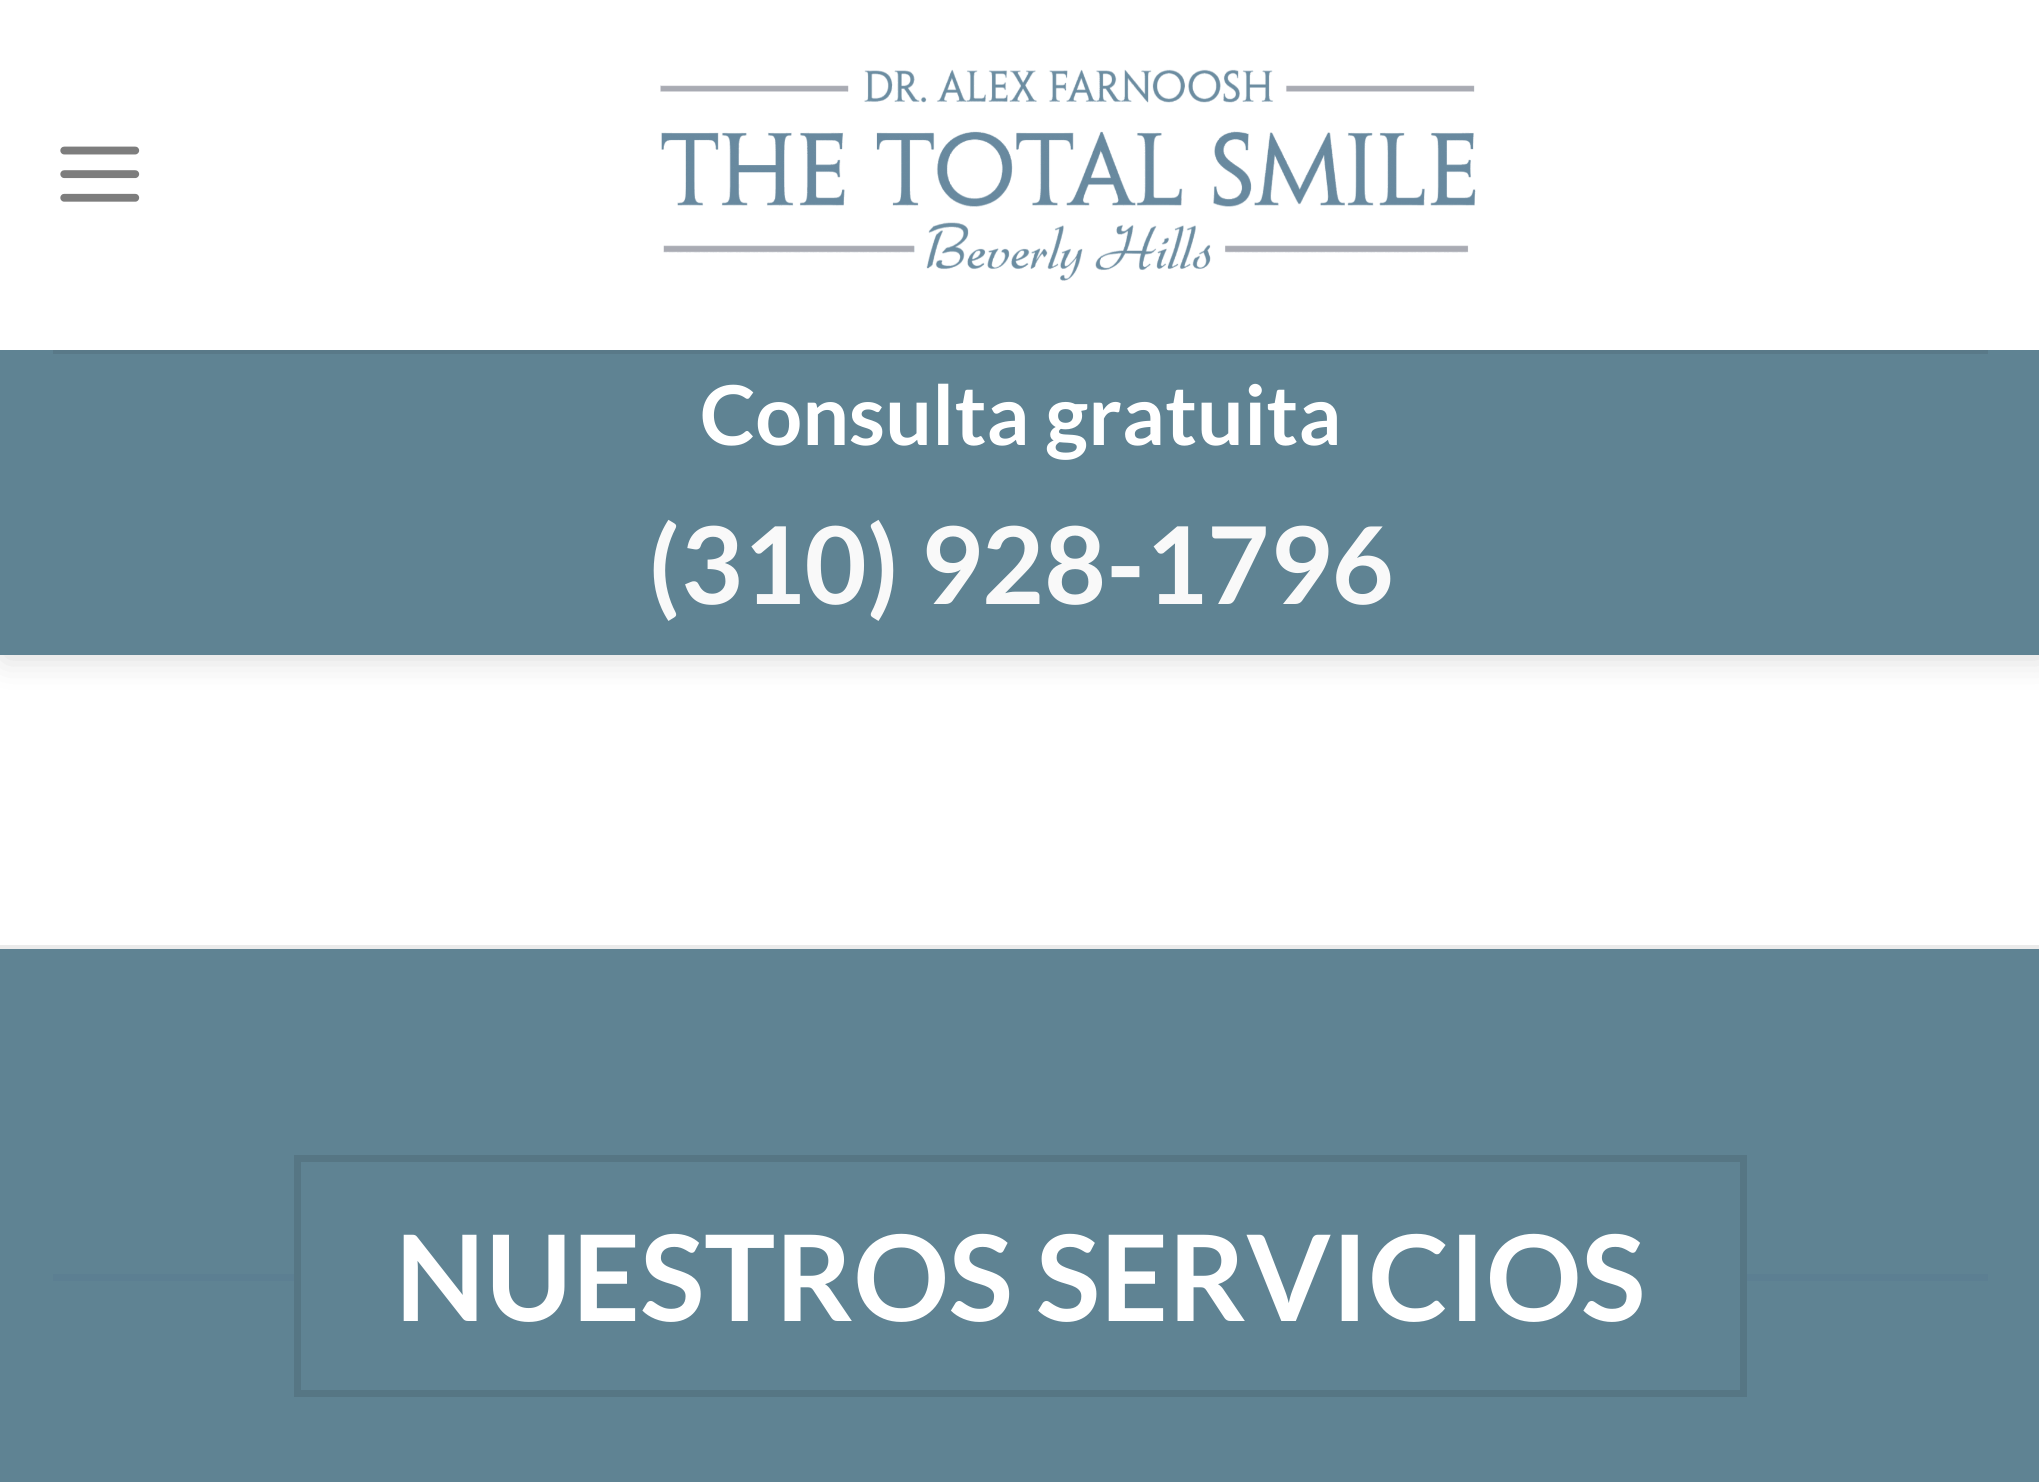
#include <cairo/cairo.h>
#include <math.h>
#include <stddef.h>


static void rounded_rect(cairo_t *cr, double x, double y, double w, double h, double r) {
  cairo_new_sub_path(cr);
  cairo_arc(cr, x + w - r, y + h - r, r, 0, M_PI / 2);
  cairo_arc(cr, x + r, y + h - r, r, M_PI / 2, M_PI);
  cairo_arc(cr, x + r, y + r, r, M_PI, 1.5 * M_PI);
  cairo_arc(cr, x + w - r, y + r, r, 1.5 * M_PI, 2 * M_PI);
  cairo_close_path(cr);
}

static void draw_shadow(cairo_t *cr, double x, double y, double w, double h, double r, double blur, double alpha) {
  cairo_push_group_with_content(cr, CAIRO_CONTENT_ALPHA);
  cairo_set_operator(cr, CAIRO_OPERATOR_SOURCE);
  for (int i = 15; i >= -15 && fmin(w, h) + blur * i / 3 > 0; i -= 2) {
    double e = blur * i / 6;
    cairo_set_source_rgba(cr, 0, 0, 0, alpha * erfc((i - 1) / 8.5) / 2);
    rounded_rect(cr, x - e, y - e, w + 2 * e, h + 2 * e, fmax(0, fmin(r + e + blur * .6, fmin(w, h) / 2 + e)));
    cairo_fill(cr);
  }
  cairo_pattern_t *soft = cairo_pop_group(cr);
  cairo_mask(cr, soft);
  cairo_pattern_destroy(soft);
}

static void draw_image(cairo_t *cr, const char *path, double x, double y, double w, double h) {
  cairo_surface_t *image = cairo_image_surface_create_from_png(path);
  cairo_save(cr);
  cairo_set_source_surface(cr, image, x, y);
  cairo_rectangle(cr, x, y, w, h);
  cairo_fill(cr);
  cairo_restore(cr);
  cairo_surface_destroy(image);
}

static void draw(cairo_t *cr) {
  cairo_set_source_rgb(cr, 1, 1, 1);
  cairo_paint(cr);
  cairo_set_source_rgb(cr, 0, 0, 0);
  draw_shadow(cr, 4, 4, 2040, 654, 0, 17.5, 0.15);
  cairo_set_source_rgb(cr, 1, 1, 1);
  cairo_rectangle(cr, 0, 0, 2039, 350);
  cairo_fill(cr);
  draw_image(cr, "images/1.png", 60, 146, 80, 56);
  draw_image(cr, "images/2.png", 660, 69, 816, 212);
  cairo_set_source_rgb(cr, 95 / 255.0, 131 / 255.0, 147 / 255.0);
  cairo_rectangle(cr, 0, 350, 2039, 305);
  cairo_fill(cr);
  cairo_set_source_rgb(cr, 89 / 255.0, 121 / 255.0, 136 / 255.0);
  cairo_rectangle(cr, 53, 350, 1935, 4);
  cairo_fill(cr);
  cairo_set_source_rgb(cr, 95 / 255.0, 131 / 255.0, 147 / 255.0);
  cairo_rectangle(cr, 0, 949, 2039, 533);
  cairo_fill(cr);
  cairo_set_source_rgb(cr, 235 / 255.0, 235 / 255.0, 235 / 255.0);
  cairo_rectangle(cr, 0, 945, 2039, 4);
  cairo_fill(cr);
  cairo_set_source_rgb(cr, 92 / 255.0, 127 / 255.0, 146 / 255.0);
  cairo_rectangle(cr, 53, 1274, 241, 7);
  cairo_fill(cr);
  cairo_rectangle(cr, 297.5, 1158.5, 1446, 235);
  cairo_set_source_rgb(cr, 86 / 255.0, 118 / 255.0, 132 / 255.0);
  cairo_set_line_width(cr, 7);
  cairo_stroke(cr);
  cairo_set_source_rgb(cr, 92 / 255.0, 127 / 255.0, 146 / 255.0);
  cairo_rectangle(cr, 1747, 1274, 241, 7);
  cairo_fill(cr);
  cairo_select_font_face(cr, "Lato", CAIRO_FONT_SLANT_NORMAL, CAIRO_FONT_WEIGHT_BOLD);
  cairo_set_font_size(cr, 82.5);
  cairo_set_source_rgb(cr, 1, 1, 1);
  cairo_move_to(cr, 700, 445);
  cairo_show_text(cr, "Consulta gratuita");
  cairo_set_font_size(cr, 107.25);
  cairo_set_source_rgb(cr, 249 / 255.0, 249 / 255.0, 249 / 255.0);
  cairo_move_to(cr, 648, 604);
  cairo_show_text(cr, "(310) 928-1796");
  cairo_set_font_size(cr, 119.3);
  cairo_set_source_rgb(cr, 1, 1, 1);
  cairo_move_to(cr, 395, 1321);
  cairo_show_text(cr, "NUESTROS SERVICIOS");
}

int main(void) {
  cairo_surface_t *surface = cairo_image_surface_create(CAIRO_FORMAT_RGB24, 2039, 1482);
  cairo_t *cr = cairo_create(surface);
  cairo_font_options_t *options = cairo_font_options_create();
  cairo_font_options_set_hint_metrics(options, CAIRO_HINT_METRICS_OFF);
  cairo_font_options_set_hint_style(options, CAIRO_HINT_STYLE_NONE);
  cairo_set_font_options(cr, options);
  cairo_set_miter_limit(cr, 4);
  draw(cr);
  cairo_surface_write_to_png(surface, "out.png");
  cairo_font_options_destroy(options);
  cairo_destroy(cr);
  cairo_surface_destroy(surface);
  return 0;
}
